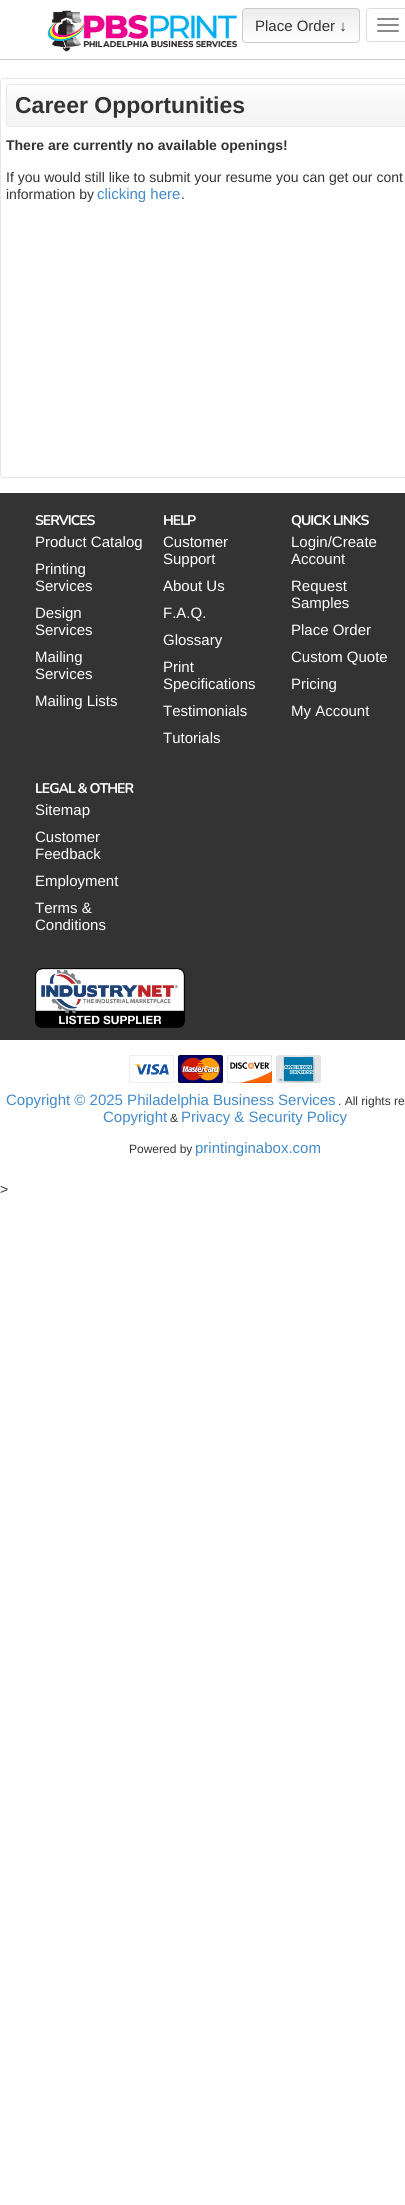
#include <cairo/cairo.h>
#include <math.h>
#include <stddef.h>


static void draw_spaced(cairo_t *cr, double x, double y, const char *s, double letter, double word) {
  cairo_move_to(cr, x, y);
  while (*s) {
    char ch[5] = {0};
    int n = 0;
    do ch[n++] = *s++; while ((*s & 0xC0) == 0x80);
    cairo_show_text(cr, ch);
    cairo_rel_move_to(cr, letter + word * (*ch == ' '), 0);
  }
}

static void rounded_rect(cairo_t *cr, double x, double y, double w, double h, double r) {
  cairo_new_sub_path(cr);
  cairo_arc(cr, x + w - r, y + h - r, r, 0, M_PI / 2);
  cairo_arc(cr, x + r, y + h - r, r, M_PI / 2, M_PI);
  cairo_arc(cr, x + r, y + r, r, M_PI, 1.5 * M_PI);
  cairo_arc(cr, x + w - r, y + r, r, 1.5 * M_PI, 2 * M_PI);
  cairo_close_path(cr);
}

static void draw_image(cairo_t *cr, const char *path, double x, double y, double w, double h) {
  cairo_surface_t *image = cairo_image_surface_create_from_png(path);
  cairo_save(cr);
  cairo_set_source_surface(cr, image, x, y);
  cairo_rectangle(cr, x, y, w, h);
  cairo_fill(cr);
  cairo_restore(cr);
  cairo_surface_destroy(image);
}

static void draw(cairo_t *cr) {
  cairo_pattern_t *gradient;
  cairo_set_source_rgb(cr, 1, 1, 1);
  cairo_paint(cr);
  cairo_set_source_rgb(cr, 204 / 255.0, 204 / 255.0, 204 / 255.0);
  cairo_rectangle(cr, 0, 59, 405, 1);
  cairo_fill(cr);
  draw_image(cr, "images/1.png", 47, 10, 190, 42);
  cairo_save(cr);
  rounded_rect(cr, 242, 8, 118, 35, 4);
  cairo_clip(cr);
  gradient = cairo_pattern_create_linear(301, 9, 301, 42);
  cairo_pattern_add_color_stop_rgba(gradient, 0, 237 / 255.0, 237 / 255.0, 237 / 255.0, 1);
  cairo_pattern_add_color_stop_rgba(gradient, 0.53, 246 / 255.0, 246 / 255.0, 246 / 255.0, 1);
  cairo_pattern_add_color_stop_rgba(gradient, 1, 1, 1, 1, 1);
  cairo_set_source(cr, gradient);
  cairo_pattern_destroy(gradient);
  cairo_rectangle(cr, 242, 9, 118, 33);
  cairo_fill(cr);
  cairo_restore(cr);
  rounded_rect(cr, 242.5, 8.5, 117, 34, 3.5);
  cairo_set_line_width(cr, 1);
  cairo_stroke(cr);
  rounded_rect(cr, 366.5, 8.5, 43, 33, 3.5);
  cairo_set_source_rgb(cr, 221 / 255.0, 221 / 255.0, 221 / 255.0);
  cairo_stroke(cr);
  cairo_set_source_rgb(cr, 136 / 255.0, 136 / 255.0, 136 / 255.0);
  rounded_rect(cr, 377, 18, 22, 2, 1);
  cairo_fill(cr);
  rounded_rect(cr, 377, 24, 22, 2, 1);
  cairo_fill(cr);
  rounded_rect(cr, 377, 30, 22, 2, 1);
  cairo_fill(cr);
  rounded_rect(cr, 0.5, 78.5, 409, 399, 3.5);
  cairo_set_source_rgb(cr, 231 / 255.0, 231 / 255.0, 231 / 255.0);
  cairo_stroke(cr);
  cairo_save(cr);
  rounded_rect(cr, 6, 84, 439, 43, 4);
  cairo_clip(cr);
  gradient = cairo_pattern_create_linear(226, 85, 226, 126);
  cairo_pattern_add_color_stop_rgba(gradient, 0, 1, 1, 1, 1);
  cairo_pattern_add_color_stop_rgba(gradient, 0.47, 246 / 255.0, 246 / 255.0, 246 / 255.0, 1);
  cairo_pattern_add_color_stop_rgba(gradient, 1, 245 / 255.0, 245 / 255.0, 245 / 255.0, 1);
  cairo_set_source(cr, gradient);
  cairo_pattern_destroy(gradient);
  cairo_rectangle(cr, 6, 85, 399, 41);
  cairo_fill(cr);
  cairo_restore(cr);
  rounded_rect(cr, 6.5, 84.5, 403, 42, 3.5);
  cairo_stroke(cr);
  cairo_set_source_rgb(cr, 51 / 255.0, 51 / 255.0, 51 / 255.0);
  cairo_rectangle(cr, 0, 493, 405, 547);
  cairo_fill(cr);
  draw_image(cr, "images/2.png", 35, 968, 150, 60);
  draw_image(cr, "images/3.png", 129, 1055, 45, 28);
  draw_image(cr, "images/4.png", 178, 1055, 45, 28);
  draw_image(cr, "images/5.png", 227, 1055, 45, 28);
  draw_image(cr, "images/6.png", 276, 1055, 45, 28);
  cairo_select_font_face(cr, "Liberation Sans", CAIRO_FONT_SLANT_NORMAL, CAIRO_FONT_WEIGHT_NORMAL);
  cairo_set_font_size(cr, 15);
  cairo_move_to(cr, 255, 31);
  cairo_show_text(cr, "Place Order ↓");
  cairo_select_font_face(cr, "Liberation Sans", CAIRO_FONT_SLANT_NORMAL, CAIRO_FONT_WEIGHT_BOLD);
  cairo_set_font_size(cr, 23);
  cairo_move_to(cr, 15, 113);
  cairo_show_text(cr, "Career Opportunities");
  cairo_set_font_size(cr, 14);
  cairo_move_to(cr, 6, 150);
  cairo_show_text(cr, "There are currently no available openings!");
  cairo_select_font_face(cr, "Liberation Sans", CAIRO_FONT_SLANT_NORMAL, CAIRO_FONT_WEIGHT_NORMAL);
  cairo_move_to(cr, 6, 182);
  cairo_show_text(cr, "If you would still like to submit your resume you can get our cont");
  cairo_move_to(cr, 6, 199);
  cairo_show_text(cr, "information by");
  cairo_set_font_size(cr, 15);
  cairo_set_source_rgb(cr, 66 / 255.0, 139 / 255.0, 202 / 255.0);
  cairo_move_to(cr, 97, 199);
  cairo_show_text(cr, "clicking here");
  cairo_set_font_size(cr, 14);
  cairo_set_source_rgb(cr, 51 / 255.0, 51 / 255.0, 51 / 255.0);
  cairo_move_to(cr, 181, 199);
  cairo_show_text(cr, ".");
  cairo_select_font_face(cr, "Nunito", CAIRO_FONT_SLANT_NORMAL, CAIRO_FONT_WEIGHT_BOLD);
  cairo_set_source_rgb(cr, 1, 1, 1);
  draw_spaced(cr, 35, 525, "SERVICES", -1, 0);
  cairo_select_font_face(cr, "Liberation Sans", CAIRO_FONT_SLANT_NORMAL, CAIRO_FONT_WEIGHT_NORMAL);
  cairo_set_font_size(cr, 15);
  cairo_move_to(cr, 35, 547);
  cairo_show_text(cr, "Product Catalog");
  cairo_move_to(cr, 35, 574);
  cairo_show_text(cr, "Printing");
  cairo_move_to(cr, 35, 591);
  cairo_show_text(cr, "Services");
  cairo_move_to(cr, 35, 618);
  cairo_show_text(cr, "Design");
  cairo_move_to(cr, 35, 635);
  cairo_show_text(cr, "Services");
  cairo_move_to(cr, 35, 662);
  cairo_show_text(cr, "Mailing");
  cairo_move_to(cr, 35, 679);
  cairo_show_text(cr, "Services");
  cairo_move_to(cr, 35, 706);
  cairo_show_text(cr, "Mailing Lists");
  cairo_select_font_face(cr, "Nunito", CAIRO_FONT_SLANT_NORMAL, CAIRO_FONT_WEIGHT_BOLD);
  cairo_set_font_size(cr, 14);
  draw_spaced(cr, 163, 525, "HELP", -1, 0);
  cairo_select_font_face(cr, "Liberation Sans", CAIRO_FONT_SLANT_NORMAL, CAIRO_FONT_WEIGHT_NORMAL);
  cairo_set_font_size(cr, 15);
  cairo_move_to(cr, 163, 547);
  cairo_show_text(cr, "Customer");
  cairo_move_to(cr, 163, 564);
  cairo_show_text(cr, "Support");
  cairo_move_to(cr, 163, 591);
  cairo_show_text(cr, "About Us");
  cairo_move_to(cr, 163, 618);
  cairo_show_text(cr, "F.A.Q.");
  cairo_move_to(cr, 163, 645);
  cairo_show_text(cr, "Glossary");
  cairo_move_to(cr, 163, 672);
  cairo_show_text(cr, "Print");
  cairo_move_to(cr, 163, 689);
  cairo_show_text(cr, "Specifications");
  cairo_move_to(cr, 163, 716);
  cairo_show_text(cr, "Testimonials");
  cairo_move_to(cr, 163, 743);
  cairo_show_text(cr, "Tutorials");
  cairo_select_font_face(cr, "Nunito", CAIRO_FONT_SLANT_NORMAL, CAIRO_FONT_WEIGHT_BOLD);
  cairo_set_font_size(cr, 14);
  draw_spaced(cr, 291, 525, "QUICK LINKS", -1, 0);
  cairo_select_font_face(cr, "Liberation Sans", CAIRO_FONT_SLANT_NORMAL, CAIRO_FONT_WEIGHT_NORMAL);
  cairo_set_font_size(cr, 15);
  cairo_move_to(cr, 291, 547);
  cairo_show_text(cr, "Login/Create");
  cairo_move_to(cr, 291, 564);
  cairo_show_text(cr, "Account");
  cairo_move_to(cr, 291, 591);
  cairo_show_text(cr, "Request");
  cairo_move_to(cr, 291, 608);
  cairo_show_text(cr, "Samples");
  cairo_move_to(cr, 291, 635);
  cairo_show_text(cr, "Place Order");
  cairo_move_to(cr, 291, 662);
  cairo_show_text(cr, "Custom Quote");
  cairo_move_to(cr, 291, 689);
  cairo_show_text(cr, "Pricing");
  cairo_move_to(cr, 291, 716);
  cairo_show_text(cr, "My Account");
  cairo_select_font_face(cr, "Nunito", CAIRO_FONT_SLANT_NORMAL, CAIRO_FONT_WEIGHT_BOLD);
  cairo_set_font_size(cr, 14);
  draw_spaced(cr, 35, 793, "LEGAL & OTHER", -1, 0);
  cairo_select_font_face(cr, "Liberation Sans", CAIRO_FONT_SLANT_NORMAL, CAIRO_FONT_WEIGHT_NORMAL);
  cairo_set_font_size(cr, 15);
  cairo_move_to(cr, 35, 815);
  cairo_show_text(cr, "Sitemap");
  cairo_move_to(cr, 35, 842);
  cairo_show_text(cr, "Customer");
  cairo_move_to(cr, 35, 859);
  cairo_show_text(cr, "Feedback");
  cairo_move_to(cr, 35, 886);
  cairo_show_text(cr, "Employment");
  cairo_move_to(cr, 35, 913);
  cairo_show_text(cr, "Terms &");
  cairo_move_to(cr, 35, 930);
  cairo_show_text(cr, "Conditions");
  cairo_set_source_rgb(cr, 66 / 255.0, 139 / 255.0, 202 / 255.0);
  cairo_move_to(cr, 6, 1105);
  cairo_show_text(cr, "Copyright © 2025 Philadelphia Business Services");
  cairo_set_font_size(cr, 12);
  cairo_set_source_rgb(cr, 51 / 255.0, 51 / 255.0, 51 / 255.0);
  cairo_move_to(cr, 338, 1105);
  cairo_show_text(cr, ". All rights re");
  cairo_set_font_size(cr, 15);
  cairo_set_source_rgb(cr, 66 / 255.0, 139 / 255.0, 202 / 255.0);
  cairo_move_to(cr, 103, 1122);
  cairo_show_text(cr, "Copyright");
  cairo_set_font_size(cr, 12);
  cairo_set_source_rgb(cr, 51 / 255.0, 51 / 255.0, 51 / 255.0);
  cairo_move_to(cr, 170, 1122);
  cairo_show_text(cr, "&");
  cairo_set_font_size(cr, 15);
  cairo_set_source_rgb(cr, 66 / 255.0, 139 / 255.0, 202 / 255.0);
  cairo_move_to(cr, 181, 1122);
  cairo_show_text(cr, "Privacy & Security Policy");
  cairo_set_font_size(cr, 12);
  cairo_set_source_rgb(cr, 51 / 255.0, 51 / 255.0, 51 / 255.0);
  cairo_move_to(cr, 129, 1153);
  cairo_show_text(cr, "Powered by");
  cairo_set_font_size(cr, 15);
  cairo_set_source_rgb(cr, 66 / 255.0, 139 / 255.0, 202 / 255.0);
  cairo_move_to(cr, 195, 1153);
  cairo_show_text(cr, "printinginabox.com");
  cairo_set_font_size(cr, 14);
  cairo_set_source_rgb(cr, 51 / 255.0, 51 / 255.0, 51 / 255.0);
  cairo_move_to(cr, 0, 1194);
  cairo_show_text(cr, ">");
}

int main(void) {
  cairo_surface_t *surface = cairo_image_surface_create(CAIRO_FORMAT_RGB24, 405, 2205);
  cairo_t *cr = cairo_create(surface);
  cairo_font_options_t *options = cairo_font_options_create();
  cairo_font_options_set_hint_metrics(options, CAIRO_HINT_METRICS_OFF);
  cairo_font_options_set_hint_style(options, CAIRO_HINT_STYLE_NONE);
  cairo_set_font_options(cr, options);
  cairo_set_miter_limit(cr, 4);
  draw(cr);
  cairo_surface_write_to_png(surface, "out.png");
  cairo_font_options_destroy(options);
  cairo_destroy(cr);
  cairo_surface_destroy(surface);
  return 0;
}
